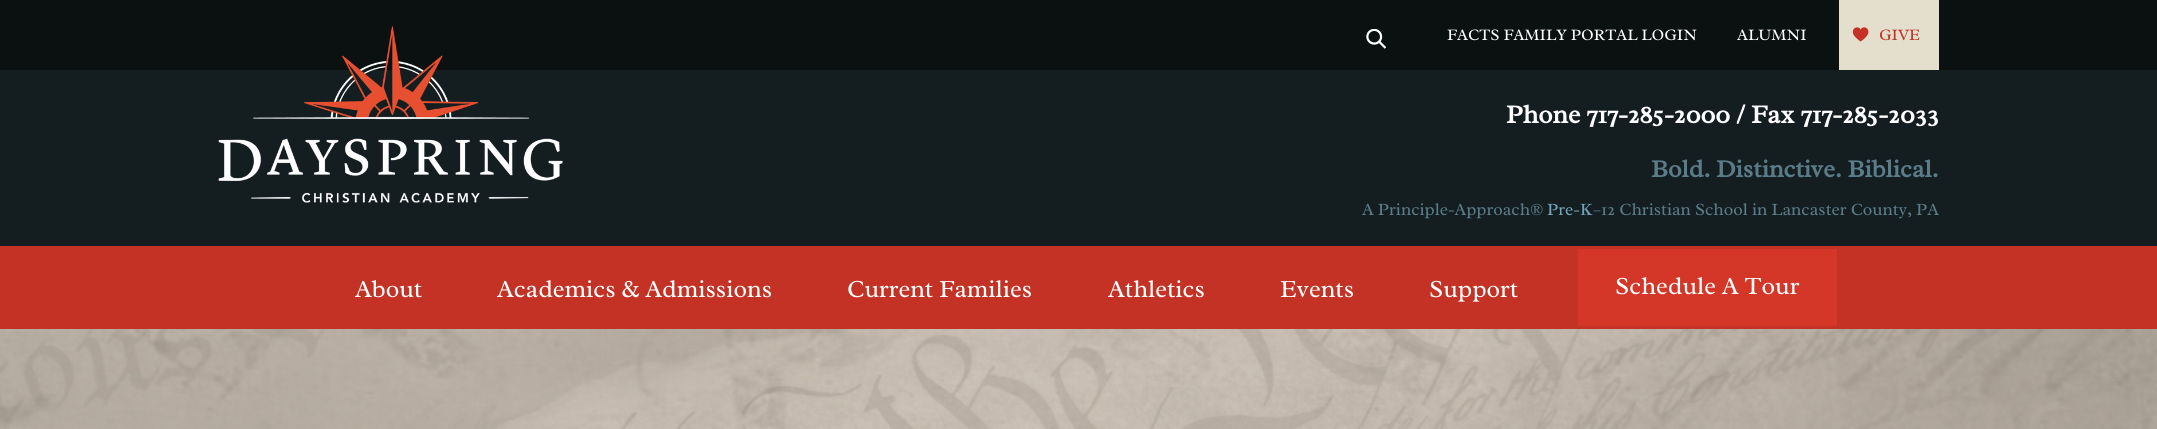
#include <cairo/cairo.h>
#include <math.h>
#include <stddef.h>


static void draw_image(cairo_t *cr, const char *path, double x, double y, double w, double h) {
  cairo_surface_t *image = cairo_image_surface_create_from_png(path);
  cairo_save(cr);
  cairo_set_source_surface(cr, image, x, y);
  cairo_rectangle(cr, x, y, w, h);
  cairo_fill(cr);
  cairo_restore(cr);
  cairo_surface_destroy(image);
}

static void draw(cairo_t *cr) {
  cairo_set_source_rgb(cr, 20 / 255.0, 30 / 255.0, 33 / 255.0);
  cairo_paint(cr);
  cairo_set_source_rgb(cr, 11 / 255.0, 16 / 255.0, 17 / 255.0);
  cairo_rectangle(cr, 0, 0, 2157, 70);
  cairo_fill(cr);
  draw_image(cr, "images/1.png", 1366, 29, 20, 20);
  cairo_set_source_rgb(cr, 228 / 255.0, 222 / 255.0, 205 / 255.0);
  cairo_rectangle(cr, 1839, 0, 100, 70);
  cairo_fill(cr);
  draw_image(cr, "images/2.png", 1852, 27, 17, 15);
  draw_image(cr, "images/3.png", 218, 26, 345, 177);
  cairo_set_source_rgb(cr, 195 / 255.0, 50 / 255.0, 37 / 255.0);
  cairo_rectangle(cr, 0, 246, 2157, 83);
  cairo_fill(cr);
  cairo_set_source_rgb(cr, 212 / 255.0, 54 / 255.0, 40 / 255.0);
  cairo_rectangle(cr, 1578, 249, 259, 77);
  cairo_fill(cr);
  draw_image(cr, "images/4.png", 0, 329, 2157, 100);
  cairo_select_font_face(cr, "Radley", CAIRO_FONT_SLANT_NORMAL, CAIRO_FONT_WEIGHT_NORMAL);
  cairo_set_font_size(cr, 16.25);
  cairo_set_source_rgb(cr, 1, 1, 1);
  cairo_move_to(cr, 1447, 40);
  cairo_show_text(cr, "FACTS FAMILY PORTAL LOGIN");
  cairo_move_to(cr, 1737, 40);
  cairo_show_text(cr, "ALUMNI");
  cairo_set_source_rgb(cr, 195 / 255.0, 50 / 255.0, 37 / 255.0);
  cairo_move_to(cr, 1879, 40);
  cairo_show_text(cr, "GIVE");
  cairo_select_font_face(cr, "Radley", CAIRO_FONT_SLANT_NORMAL, CAIRO_FONT_WEIGHT_BOLD);
  cairo_set_font_size(cr, 26.25);
  cairo_set_source_rgb(cr, 1, 1, 1);
  cairo_move_to(cr, 1506, 123);
  cairo_show_text(cr, "Phone 717-285-2000 / Fax 717-285-2033");
  cairo_set_font_size(cr, 25);
  cairo_set_source_rgb(cr, 90 / 255.0, 123 / 255.0, 136 / 255.0);
  cairo_move_to(cr, 1651, 177);
  cairo_show_text(cr, "Bold. Distinctive. Biblical.");
  cairo_select_font_face(cr, "Radley", CAIRO_FONT_SLANT_NORMAL, CAIRO_FONT_WEIGHT_NORMAL);
  cairo_set_font_size(cr, 17.5);
  cairo_move_to(cr, 1362, 215);
  cairo_show_text(cr, "A Principle-Approach®");
  cairo_move_to(cr, 1593, 215);
  cairo_show_text(cr, "–12 Christian School in Lancaster County, PA");
  cairo_set_source_rgb(cr, 114 / 255.0, 165 / 255.0, 185 / 255.0);
  cairo_move_to(cr, 1547, 215);
  cairo_show_text(cr, "Pre-K");
  cairo_set_font_size(cr, 25);
  cairo_set_source_rgb(cr, 1, 1, 1);
  cairo_move_to(cr, 355, 297);
  cairo_show_text(cr, "About");
  cairo_move_to(cr, 497, 297);
  cairo_show_text(cr, "Academics & Admissions");
  cairo_move_to(cr, 847, 297);
  cairo_show_text(cr, "Current Families");
  cairo_move_to(cr, 1108, 297);
  cairo_show_text(cr, "Athletics");
  cairo_move_to(cr, 1280, 297);
  cairo_show_text(cr, "Events");
  cairo_move_to(cr, 1429, 297);
  cairo_show_text(cr, "Support");
  cairo_move_to(cr, 1615, 294);
  cairo_show_text(cr, "Schedule A Tour");
}

int main(void) {
  cairo_surface_t *surface = cairo_image_surface_create(CAIRO_FORMAT_RGB24, 2157, 429);
  cairo_t *cr = cairo_create(surface);
  cairo_font_options_t *options = cairo_font_options_create();
  cairo_font_options_set_hint_metrics(options, CAIRO_HINT_METRICS_OFF);
  cairo_font_options_set_hint_style(options, CAIRO_HINT_STYLE_NONE);
  cairo_set_font_options(cr, options);
  cairo_set_miter_limit(cr, 4);
  draw(cr);
  cairo_surface_write_to_png(surface, "out.png");
  cairo_font_options_destroy(options);
  cairo_destroy(cr);
  cairo_surface_destroy(surface);
  return 0;
}
